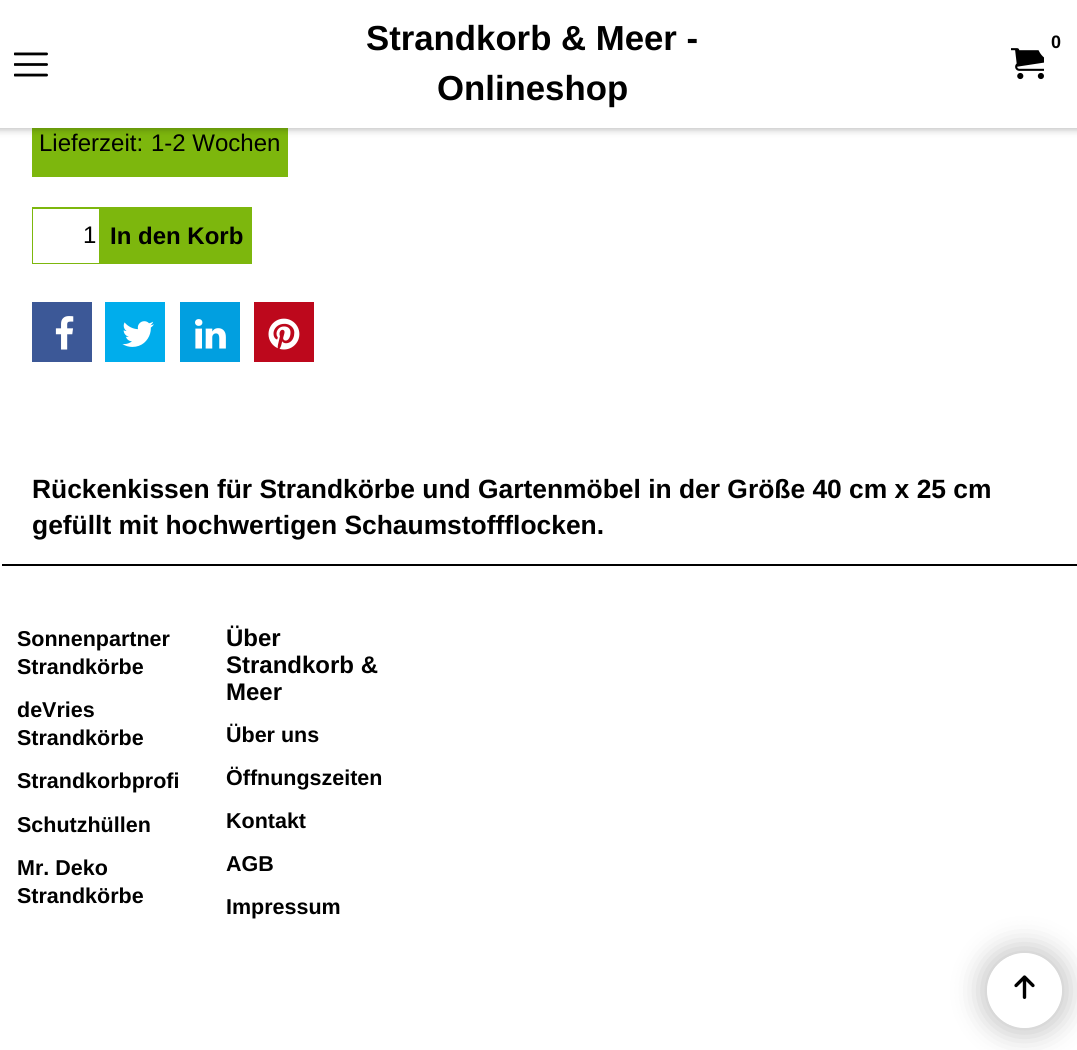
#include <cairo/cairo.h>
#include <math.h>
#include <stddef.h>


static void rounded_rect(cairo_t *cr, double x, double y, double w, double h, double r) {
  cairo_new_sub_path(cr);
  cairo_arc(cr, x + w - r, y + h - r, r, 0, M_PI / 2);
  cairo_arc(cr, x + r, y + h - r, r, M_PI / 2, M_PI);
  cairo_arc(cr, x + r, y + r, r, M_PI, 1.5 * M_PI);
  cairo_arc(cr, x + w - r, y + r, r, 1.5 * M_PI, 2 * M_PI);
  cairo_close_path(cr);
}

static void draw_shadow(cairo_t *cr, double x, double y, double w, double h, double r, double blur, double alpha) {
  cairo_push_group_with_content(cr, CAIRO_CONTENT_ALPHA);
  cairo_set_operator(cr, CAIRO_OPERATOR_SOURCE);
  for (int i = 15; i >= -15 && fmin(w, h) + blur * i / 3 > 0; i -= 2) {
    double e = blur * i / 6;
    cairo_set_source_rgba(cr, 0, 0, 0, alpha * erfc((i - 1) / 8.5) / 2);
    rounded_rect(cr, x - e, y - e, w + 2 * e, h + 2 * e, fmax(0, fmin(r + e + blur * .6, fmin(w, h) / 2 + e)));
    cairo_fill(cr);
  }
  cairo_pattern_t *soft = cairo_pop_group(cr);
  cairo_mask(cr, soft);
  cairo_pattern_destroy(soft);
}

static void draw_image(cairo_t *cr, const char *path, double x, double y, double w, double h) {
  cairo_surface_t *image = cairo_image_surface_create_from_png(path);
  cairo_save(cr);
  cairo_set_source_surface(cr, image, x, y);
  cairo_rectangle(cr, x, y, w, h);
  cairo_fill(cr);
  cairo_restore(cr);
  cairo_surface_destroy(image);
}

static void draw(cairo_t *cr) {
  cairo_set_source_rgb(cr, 1, 1, 1);
  cairo_paint(cr);
  cairo_set_source_rgb(cr, 125 / 255.0, 183 / 255.0, 13 / 255.0);
  cairo_rectangle(cr, 32, 128, 256, 49);
  cairo_fill(cr);
  cairo_set_source_rgb(cr, 0, 0, 0);
  draw_shadow(cr, -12, -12, 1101, 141, 0, 4, 0.3);
  cairo_set_source_rgb(cr, 1, 1, 1);
  cairo_rectangle(cr, 0, 0, 1077, 128);
  cairo_fill(cr);
  draw_image(cr, "images/1.png", 1011, 48, 33, 32);
  cairo_arc(cr, 1056.5, 42.5, 17, 0, 2 * M_PI);
  cairo_set_line_width(cr, 5);
  cairo_stroke(cr);
  draw_image(cr, "images/2.png", 14, 52, 34, 25);
  cairo_set_source_rgb(cr, 125 / 255.0, 183 / 255.0, 13 / 255.0);
  cairo_rectangle(cr, 32, 207, 220, 57);
  cairo_fill(cr);
  cairo_set_source_rgb(cr, 1, 1, 1);
  cairo_rectangle(cr, 33, 209, 66, 54);
  cairo_fill(cr);
  cairo_set_source_rgb(cr, 60 / 255.0, 88 / 255.0, 151 / 255.0);
  cairo_rectangle(cr, 32, 302, 60, 60);
  cairo_fill(cr);
  draw_image(cr, "images/3.png", 55, 316, 19, 34);
  cairo_set_source_rgb(cr, 0, 173 / 255.0, 236 / 255.0);
  cairo_rectangle(cr, 105, 302, 60, 60);
  cairo_fill(cr);
  draw_image(cr, "images/4.png", 122, 321, 32, 26);
  cairo_set_source_rgb(cr, 1 / 255.0, 159 / 255.0, 224 / 255.0);
  cairo_rectangle(cr, 180, 302, 60, 60);
  cairo_fill(cr);
  draw_image(cr, "images/5.png", 195, 319, 31, 30);
  cairo_set_source_rgb(cr, 189 / 255.0, 8 / 255.0, 28 / 255.0);
  cairo_rectangle(cr, 254, 302, 60, 60);
  cairo_fill(cr);
  draw_image(cr, "images/6.png", 268, 318, 32, 32);
  cairo_set_source_rgb(cr, 0, 0, 0);
  cairo_rectangle(cr, 2, 564, 1075, 2);
  cairo_fill(cr);
  cairo_save(cr);
  cairo_set_fill_rule(cr, CAIRO_FILL_RULE_EVEN_ODD);
  cairo_new_path(cr);
  cairo_move_to(cr, 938, 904);
  cairo_line_to(cr, 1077, 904);
  cairo_line_to(cr, 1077, 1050);
  cairo_line_to(cr, 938, 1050);
  cairo_close_path(cr);
  cairo_move_to(cr, 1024.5, 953);
  cairo_curve_to(cr, 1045, 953, 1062, 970, 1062, 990.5);
  cairo_curve_to(cr, 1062, 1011, 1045, 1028, 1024.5, 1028);
  cairo_curve_to(cr, 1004, 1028, 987, 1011, 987, 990.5);
  cairo_curve_to(cr, 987, 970, 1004, 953, 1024.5, 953);
  cairo_close_path(cr);
  cairo_clip(cr);
  cairo_set_source_rgb(cr, 0, 0, 0);
  draw_shadow(cr, 978, 944, 93, 93, 46.5, 13, 0.2);
  cairo_restore(cr);
  draw_image(cr, "images/7.png", 1014, 975, 21, 24);
  cairo_select_font_face(cr, "Liberation Sans", CAIRO_FONT_SLANT_NORMAL, CAIRO_FONT_WEIGHT_BOLD);
  cairo_set_font_size(cr, 34.75);
  cairo_move_to(cr, 366, 50);
  cairo_show_text(cr, "Strandkorb & Meer -");
  cairo_move_to(cr, 437, 100);
  cairo_show_text(cr, "Onlineshop");
  cairo_set_font_size(cr, 18);
  cairo_move_to(cr, 1051, 48);
  cairo_show_text(cr, "0");
  cairo_select_font_face(cr, "Liberation Sans", CAIRO_FONT_SLANT_NORMAL, CAIRO_FONT_WEIGHT_NORMAL);
  cairo_set_font_size(cr, 24);
  cairo_move_to(cr, 39, 151);
  cairo_show_text(cr, "Lieferzeit:");
  cairo_move_to(cr, 151, 151);
  cairo_show_text(cr, "1-2 Wochen");
  cairo_move_to(cr, 83, 243);
  cairo_show_text(cr, "1");
  cairo_select_font_face(cr, "Liberation Sans", CAIRO_FONT_SLANT_NORMAL, CAIRO_FONT_WEIGHT_BOLD);
  cairo_move_to(cr, 110, 244);
  cairo_show_text(cr, "In den Korb");
  cairo_set_font_size(cr, 26.4);
  cairo_move_to(cr, 32, 498);
  cairo_show_text(cr, "Rückenkissen für Strandkörbe und Gartenmöbel in der Größe 40 cm x 25 cm");
  cairo_move_to(cr, 32, 534);
  cairo_show_text(cr, "gefüllt mit hochwertigen Schaumstoffflocken.");
  cairo_set_font_size(cr, 21.5);
  cairo_move_to(cr, 17, 646);
  cairo_show_text(cr, "Sonnenpartner");
  cairo_move_to(cr, 17, 674);
  cairo_show_text(cr, "Strandkörbe");
  cairo_move_to(cr, 17, 717);
  cairo_show_text(cr, "deVries");
  cairo_move_to(cr, 17, 745);
  cairo_show_text(cr, "Strandkörbe");
  cairo_move_to(cr, 17, 788);
  cairo_show_text(cr, "Strandkorbprofi");
  cairo_move_to(cr, 17, 832);
  cairo_show_text(cr, "Schutzhüllen");
  cairo_move_to(cr, 17, 875);
  cairo_show_text(cr, "Mr. Deko");
  cairo_move_to(cr, 17, 903);
  cairo_show_text(cr, "Strandkörbe");
  cairo_set_font_size(cr, 24);
  cairo_move_to(cr, 226, 646);
  cairo_show_text(cr, "Über");
  cairo_move_to(cr, 226, 673);
  cairo_show_text(cr, "Strandkorb &");
  cairo_move_to(cr, 226, 700);
  cairo_show_text(cr, "Meer");
  cairo_set_font_size(cr, 21.5);
  cairo_move_to(cr, 226, 742);
  cairo_show_text(cr, "Über uns");
  cairo_move_to(cr, 226, 785);
  cairo_show_text(cr, "Öffnungszeiten");
  cairo_move_to(cr, 226, 828);
  cairo_show_text(cr, "Kontakt");
  cairo_move_to(cr, 226, 871);
  cairo_show_text(cr, "AGB");
  cairo_move_to(cr, 226, 914);
  cairo_show_text(cr, "Impressum");
}

int main(void) {
  cairo_surface_t *surface = cairo_image_surface_create(CAIRO_FORMAT_RGB24, 1077, 1050);
  cairo_t *cr = cairo_create(surface);
  cairo_font_options_t *options = cairo_font_options_create();
  cairo_font_options_set_hint_metrics(options, CAIRO_HINT_METRICS_OFF);
  cairo_font_options_set_hint_style(options, CAIRO_HINT_STYLE_NONE);
  cairo_set_font_options(cr, options);
  cairo_set_miter_limit(cr, 4);
  draw(cr);
  cairo_surface_write_to_png(surface, "out.png");
  cairo_font_options_destroy(options);
  cairo_destroy(cr);
  cairo_surface_destroy(surface);
  return 0;
}
